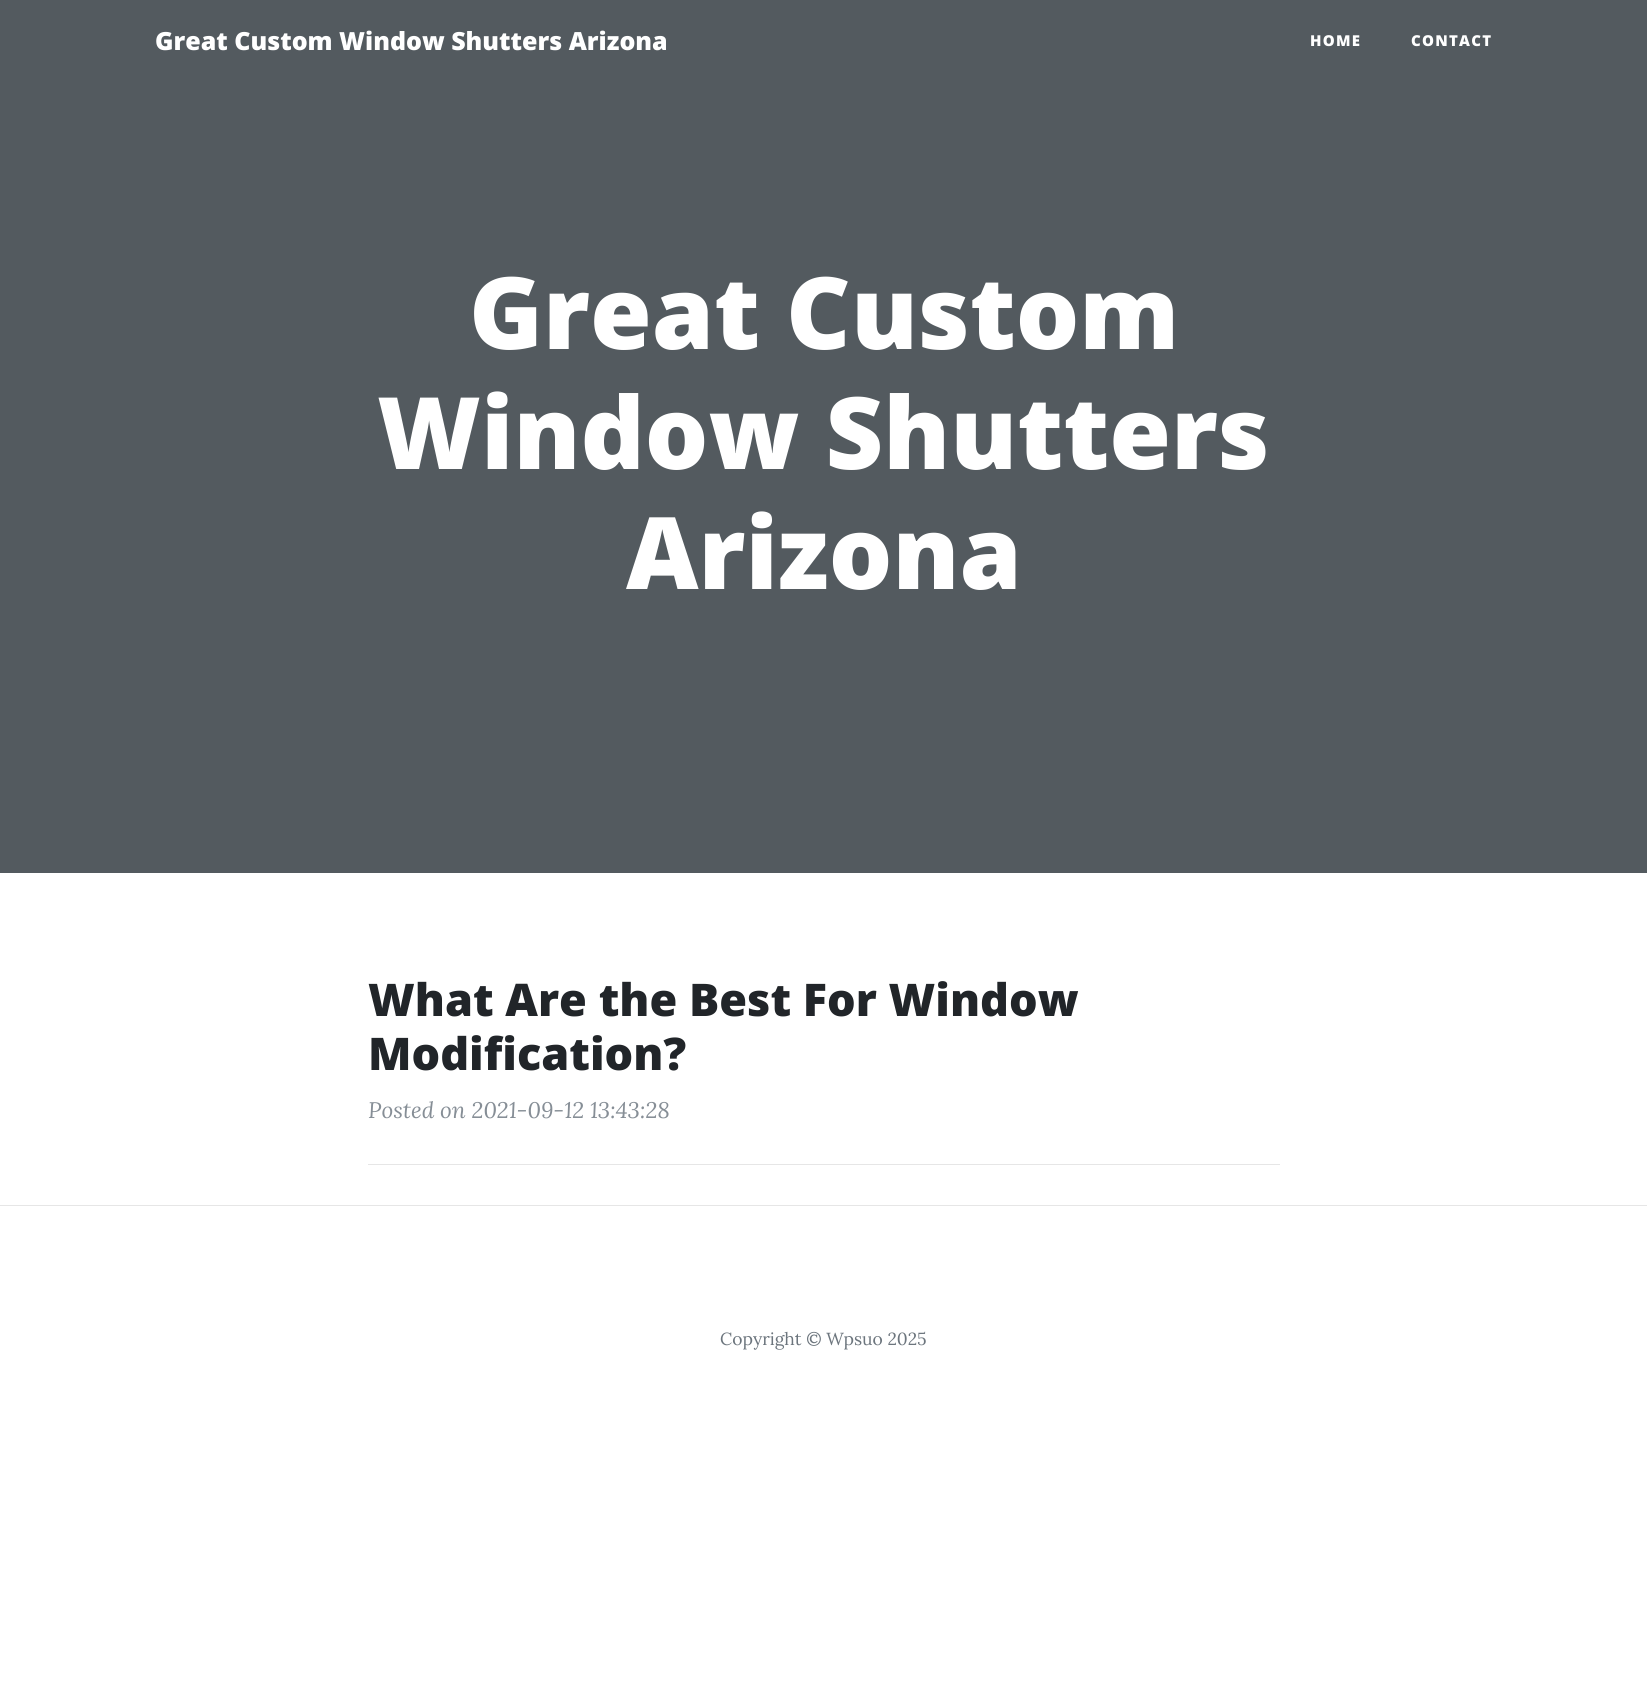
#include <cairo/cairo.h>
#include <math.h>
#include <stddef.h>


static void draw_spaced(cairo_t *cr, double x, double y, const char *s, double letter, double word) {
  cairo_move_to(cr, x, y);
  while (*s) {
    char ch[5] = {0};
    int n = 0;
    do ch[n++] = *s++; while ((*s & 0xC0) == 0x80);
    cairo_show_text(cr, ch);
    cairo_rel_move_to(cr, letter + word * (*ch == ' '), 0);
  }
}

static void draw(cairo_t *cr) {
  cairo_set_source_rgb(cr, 1, 1, 1);
  cairo_paint(cr);
  cairo_set_source_rgb(cr, 83 / 255.0, 90 / 255.0, 95 / 255.0);
  cairo_rectangle(cr, 0, 0, 1647, 873);
  cairo_fill(cr);
  cairo_set_source_rgb(cr, 230 / 255.0, 230 / 255.0, 230 / 255.0);
  cairo_rectangle(cr, 368, 1164, 912, 1);
  cairo_fill(cr);
  cairo_rectangle(cr, 0, 1205, 1647, 1);
  cairo_fill(cr);
  cairo_select_font_face(cr, "Open Sans ExtraBold", CAIRO_FONT_SLANT_NORMAL, CAIRO_FONT_WEIGHT_NORMAL);
  cairo_set_font_size(cr, 25);
  cairo_set_source_rgb(cr, 1, 1, 1);
  cairo_move_to(cr, 155, 50);
  cairo_show_text(cr, "Great Custom Window Shutters Arizona");
  cairo_set_font_size(cr, 15);
  draw_spaced(cr, 1310, 46, "HOME", 1.25, 0);
  draw_spaced(cr, 1411, 46, "CONTACT", 1.25, 0);
  cairo_set_font_size(cr, 100);
  cairo_move_to(cr, 469, 349);
  cairo_show_text(cr, "Great Custom");
  cairo_move_to(cr, 377, 469);
  cairo_show_text(cr, "Window Shutters");
  cairo_move_to(cr, 626, 589);
  cairo_show_text(cr, "Arizona");
  cairo_set_font_size(cr, 45);
  cairo_set_source_rgb(cr, 33 / 255.0, 37 / 255.0, 41 / 255.0);
  cairo_move_to(cr, 368, 1016);
  cairo_show_text(cr, "What Are the Best For Window");
  cairo_move_to(cr, 368, 1070);
  cairo_show_text(cr, "Modification?");
  cairo_select_font_face(cr, "Lora", CAIRO_FONT_SLANT_ITALIC, CAIRO_FONT_WEIGHT_NORMAL);
  cairo_set_font_size(cr, 22.5);
  cairo_set_source_rgb(cr, 134 / 255.0, 142 / 255.0, 150 / 255.0);
  cairo_move_to(cr, 368, 1118);
  cairo_show_text(cr, "Posted on 2021-09-12 13:43:28");
  cairo_select_font_face(cr, "Lora", CAIRO_FONT_SLANT_NORMAL, CAIRO_FONT_WEIGHT_NORMAL);
  cairo_set_font_size(cr, 17.5);
  cairo_set_source_rgb(cr, 108 / 255.0, 117 / 255.0, 125 / 255.0);
  cairo_move_to(cr, 720, 1345);
  cairo_show_text(cr, "Copyright © Wpsuo 2025");
}

int main(void) {
  cairo_surface_t *surface = cairo_image_surface_create(CAIRO_FORMAT_RGB24, 1647, 1683);
  cairo_t *cr = cairo_create(surface);
  cairo_font_options_t *options = cairo_font_options_create();
  cairo_font_options_set_hint_metrics(options, CAIRO_HINT_METRICS_OFF);
  cairo_font_options_set_hint_style(options, CAIRO_HINT_STYLE_NONE);
  cairo_set_font_options(cr, options);
  cairo_set_miter_limit(cr, 4);
  draw(cr);
  cairo_surface_write_to_png(surface, "out.png");
  cairo_font_options_destroy(options);
  cairo_destroy(cr);
  cairo_surface_destroy(surface);
  return 0;
}
